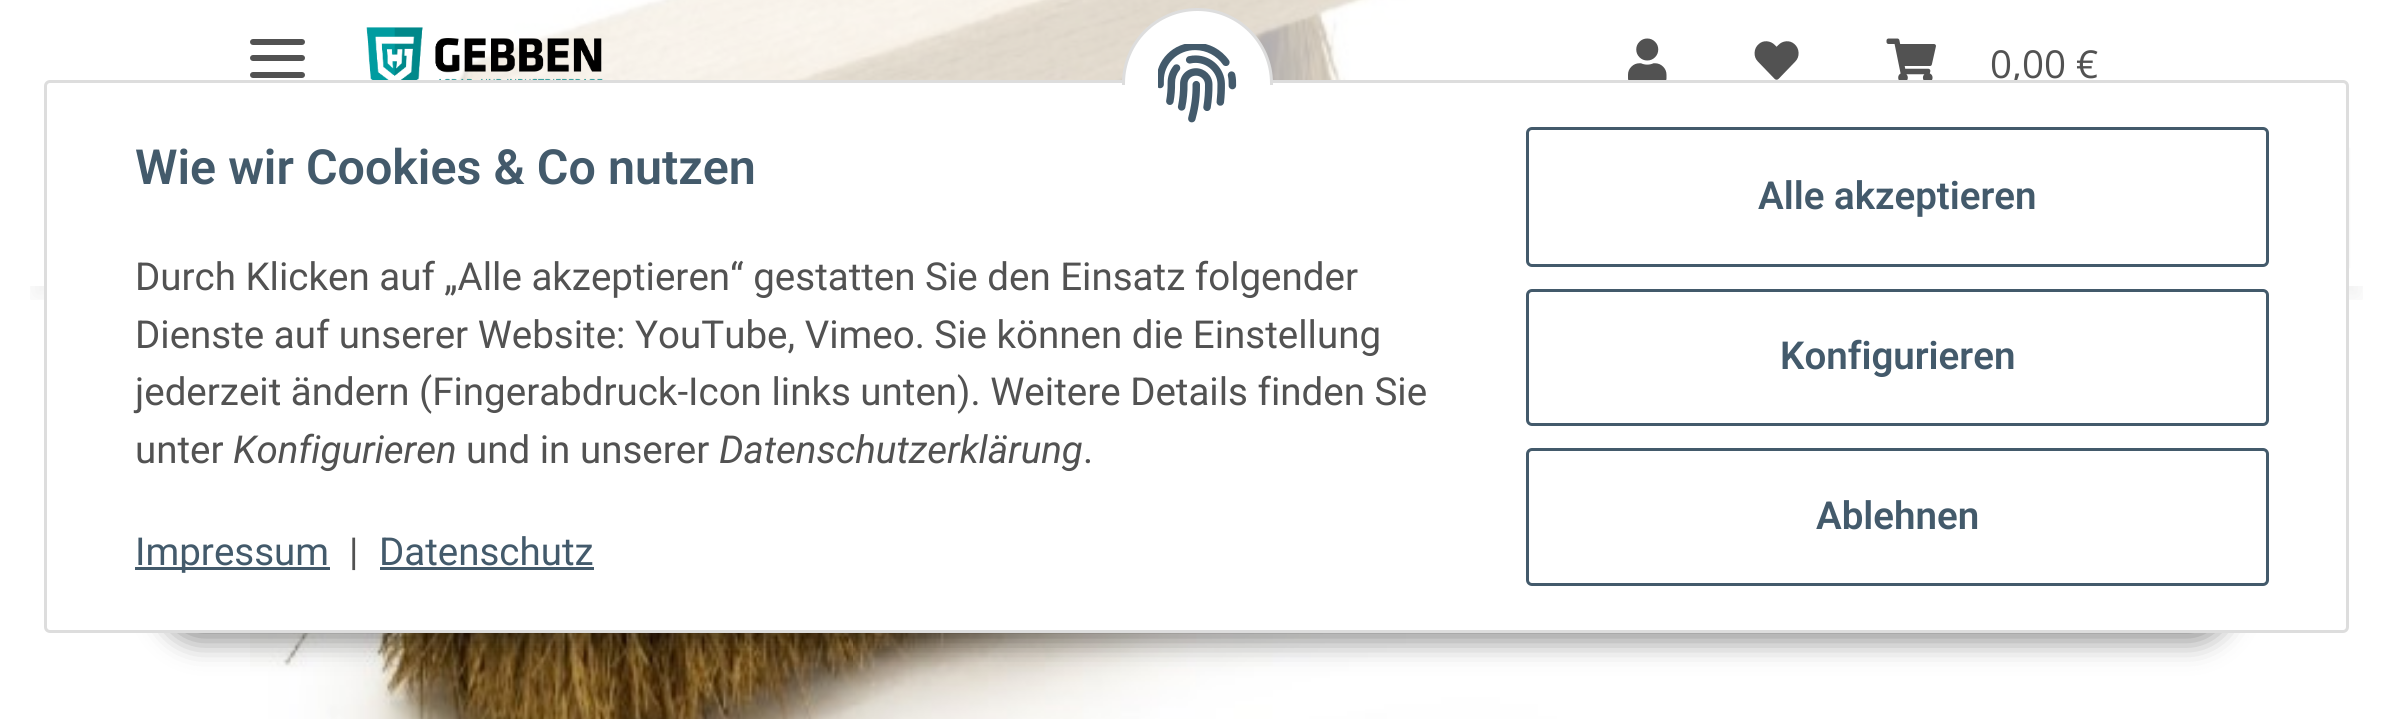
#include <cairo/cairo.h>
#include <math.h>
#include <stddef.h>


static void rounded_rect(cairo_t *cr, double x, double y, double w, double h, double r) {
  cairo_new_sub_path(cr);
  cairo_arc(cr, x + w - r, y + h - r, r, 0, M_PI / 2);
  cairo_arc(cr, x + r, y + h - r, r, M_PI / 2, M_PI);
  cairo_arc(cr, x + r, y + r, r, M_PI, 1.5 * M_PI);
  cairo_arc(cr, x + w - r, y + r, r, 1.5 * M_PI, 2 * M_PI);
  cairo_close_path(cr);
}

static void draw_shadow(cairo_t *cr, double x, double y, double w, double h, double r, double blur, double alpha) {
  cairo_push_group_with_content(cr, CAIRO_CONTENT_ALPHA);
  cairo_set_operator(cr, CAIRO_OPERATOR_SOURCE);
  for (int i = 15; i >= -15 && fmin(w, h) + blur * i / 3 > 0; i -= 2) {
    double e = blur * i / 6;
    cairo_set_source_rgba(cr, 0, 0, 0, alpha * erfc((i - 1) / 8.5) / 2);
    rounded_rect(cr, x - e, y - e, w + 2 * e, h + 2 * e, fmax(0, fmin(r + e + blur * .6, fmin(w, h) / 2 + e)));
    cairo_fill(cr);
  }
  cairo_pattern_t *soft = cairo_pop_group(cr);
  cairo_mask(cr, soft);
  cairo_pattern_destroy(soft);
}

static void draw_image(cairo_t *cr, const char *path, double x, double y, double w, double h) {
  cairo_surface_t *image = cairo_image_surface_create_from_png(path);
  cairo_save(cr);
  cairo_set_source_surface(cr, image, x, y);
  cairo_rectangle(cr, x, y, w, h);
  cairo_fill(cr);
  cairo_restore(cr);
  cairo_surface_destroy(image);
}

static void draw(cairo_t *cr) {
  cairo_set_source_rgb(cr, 1, 1, 1);
  cairo_paint(cr);
  draw_image(cr, "images/1.png", 250, 0, 1483, 719);
  cairo_save(cr);
  cairo_rectangle(cr, 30, 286, 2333, 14);
  cairo_clip(cr);
  cairo_set_source_rgb(cr, 0, 0, 0);
  draw_shadow(cr, 33, 77, 2327, 220, 0, 12.5, 0.06);
  cairo_restore(cr);
  cairo_set_source_rgba(cr, 1, 1, 1, 0.69);
  cairo_rectangle(cr, 401, 0, 1332, 286);
  cairo_fill(cr);
  cairo_set_source_rgb(cr, 82 / 255.0, 82 / 255.0, 82 / 255.0);
  rounded_rect(cr, 250, 55, 55, 6, 3);
  cairo_fill(cr);
  rounded_rect(cr, 250, 39, 55, 6, 3);
  cairo_fill(cr);
  rounded_rect(cr, 250, 72, 55, 6, 3);
  cairo_fill(cr);
  draw_image(cr, "images/2.png", 366, 27, 237, 53);
  draw_image(cr, "images/3.png", 1628, 38, 39, 42);
  draw_image(cr, "images/4.png", 1754, 41, 45, 39);
  draw_image(cr, "images/5.png", 1886, 38, 50, 42);
  cairo_set_source_rgb(cr, 0, 0, 0);
  draw_shadow(cr, 2222, 149, 127, 118, 0, 1.5, 0.07);
  draw_shadow(cr, 162, 553, 2068, 88, 44, 14, 0.45);
  cairo_select_font_face(cr, "Open Sans", CAIRO_FONT_SLANT_NORMAL, CAIRO_FONT_WEIGHT_NORMAL);
  cairo_set_font_size(cr, 38.5);
  cairo_set_source_rgb(cr, 82 / 255.0, 82 / 255.0, 82 / 255.0);
  cairo_move_to(cr, 1990, 78);
  cairo_show_text(cr, "0,00 €");
  cairo_set_source_rgb(cr, 1, 1, 1);
  rounded_rect(cr, 45.5, 81.5, 2302, 550, 4.5);
  cairo_fill_preserve(cr);
  cairo_set_source_rgb(cr, 221 / 255.0, 221 / 255.0, 221 / 255.0);
  cairo_set_line_width(cr, 3);
  cairo_stroke(cr);
  cairo_set_source_rgb(cr, 1, 1, 1);
  rounded_rect(cr, 1123.5, 9.5, 148, 149, 74);
  cairo_fill_preserve(cr);
  cairo_set_source_rgb(cr, 221 / 255.0, 221 / 255.0, 221 / 255.0);
  cairo_stroke(cr);
  cairo_set_source_rgb(cr, 1, 1, 1);
  cairo_rectangle(cr, 1122, 85, 151, 75);
  cairo_fill(cr);
  draw_image(cr, "images/6.png", 1158, 44, 79, 79);
  cairo_select_font_face(cr, "Roboto SemiBold", CAIRO_FONT_SLANT_NORMAL, CAIRO_FONT_WEIGHT_NORMAL);
  cairo_set_font_size(cr, 48.4);
  cairo_set_source_rgb(cr, 67 / 255.0, 90 / 255.0, 107 / 255.0);
  cairo_move_to(cr, 135, 184);
  cairo_show_text(cr, "Wie wir Cookies & Co nutzen");
  cairo_select_font_face(cr, "Roboto", CAIRO_FONT_SLANT_NORMAL, CAIRO_FONT_WEIGHT_NORMAL);
  cairo_set_font_size(cr, 38.5);
  cairo_set_source_rgb(cr, 82 / 255.0, 82 / 255.0, 82 / 255.0);
  cairo_move_to(cr, 135, 290);
  cairo_show_text(cr, "Durch Klicken auf „Alle akzeptieren“ gestatten Sie den Einsatz folgender");
  cairo_move_to(cr, 135, 348);
  cairo_show_text(cr, "Dienste auf unserer Website: YouTube, Vimeo. Sie können die Einstellung");
  cairo_move_to(cr, 135, 405);
  cairo_show_text(cr, "jederzeit ändern (Fingerabdruck-Icon links unten). Weitere Details finden Sie");
  cairo_move_to(cr, 135, 463);
  cairo_show_text(cr, "unter");
  cairo_select_font_face(cr, "Roboto", CAIRO_FONT_SLANT_ITALIC, CAIRO_FONT_WEIGHT_NORMAL);
  cairo_move_to(cr, 233, 463);
  cairo_show_text(cr, "Konfigurieren");
  cairo_select_font_face(cr, "Roboto", CAIRO_FONT_SLANT_NORMAL, CAIRO_FONT_WEIGHT_NORMAL);
  cairo_move_to(cr, 466, 463);
  cairo_show_text(cr, "und in unserer");
  cairo_select_font_face(cr, "Roboto", CAIRO_FONT_SLANT_ITALIC, CAIRO_FONT_WEIGHT_NORMAL);
  cairo_move_to(cr, 719, 463);
  cairo_show_text(cr, "Datenschutzerklärung");
  cairo_select_font_face(cr, "Roboto", CAIRO_FONT_SLANT_NORMAL, CAIRO_FONT_WEIGHT_NORMAL);
  cairo_move_to(cr, 1083, 463);
  cairo_show_text(cr, ".");
  cairo_set_source_rgb(cr, 67 / 255.0, 90 / 255.0, 107 / 255.0);
  cairo_rectangle(cr, 135, 567, 195, 3);
  cairo_fill(cr);
  cairo_move_to(cr, 135, 565);
  cairo_show_text(cr, "Impressum");
  cairo_set_source_rgb(cr, 82 / 255.0, 82 / 255.0, 82 / 255.0);
  cairo_move_to(cr, 349, 565);
  cairo_show_text(cr, "|");
  cairo_set_source_rgb(cr, 67 / 255.0, 90 / 255.0, 107 / 255.0);
  cairo_move_to(cr, 379, 565);
  cairo_show_text(cr, "Datenschutz");
  cairo_rectangle(cr, 380, 567, 214, 3);
  cairo_fill(cr);
  rounded_rect(cr, 1527.5, 128.5, 740, 137, 4.5);
  cairo_stroke(cr);
  cairo_select_font_face(cr, "Roboto SemiBold", CAIRO_FONT_SLANT_NORMAL, CAIRO_FONT_WEIGHT_NORMAL);
  cairo_move_to(cr, 1758, 209);
  cairo_show_text(cr, "Alle akzeptieren");
  rounded_rect(cr, 1527.5, 290.5, 740, 134, 4.5);
  cairo_stroke(cr);
  cairo_move_to(cr, 1780, 369);
  cairo_show_text(cr, "Konfigurieren");
  rounded_rect(cr, 1527.5, 449.5, 740, 135, 4.5);
  cairo_stroke(cr);
  cairo_move_to(cr, 1816, 529);
  cairo_show_text(cr, "Ablehnen");
}

int main(void) {
  cairo_surface_t *surface = cairo_image_surface_create(CAIRO_FORMAT_RGB24, 2390, 719);
  cairo_t *cr = cairo_create(surface);
  cairo_font_options_t *options = cairo_font_options_create();
  cairo_font_options_set_hint_metrics(options, CAIRO_HINT_METRICS_OFF);
  cairo_font_options_set_hint_style(options, CAIRO_HINT_STYLE_NONE);
  cairo_set_font_options(cr, options);
  cairo_set_miter_limit(cr, 4);
  draw(cr);
  cairo_surface_write_to_png(surface, "out.png");
  cairo_font_options_destroy(options);
  cairo_destroy(cr);
  cairo_surface_destroy(surface);
  return 0;
}
